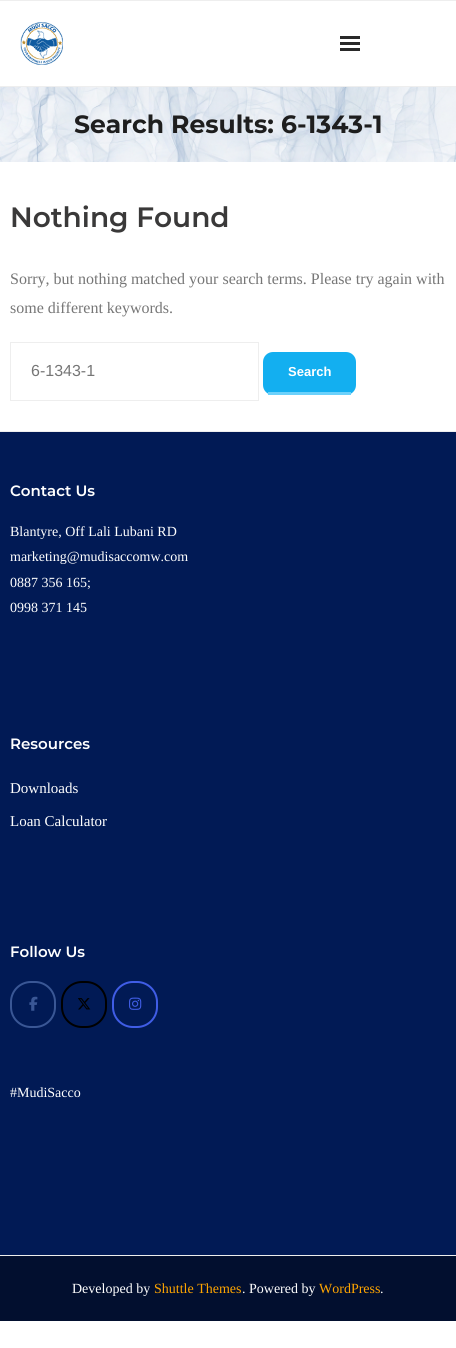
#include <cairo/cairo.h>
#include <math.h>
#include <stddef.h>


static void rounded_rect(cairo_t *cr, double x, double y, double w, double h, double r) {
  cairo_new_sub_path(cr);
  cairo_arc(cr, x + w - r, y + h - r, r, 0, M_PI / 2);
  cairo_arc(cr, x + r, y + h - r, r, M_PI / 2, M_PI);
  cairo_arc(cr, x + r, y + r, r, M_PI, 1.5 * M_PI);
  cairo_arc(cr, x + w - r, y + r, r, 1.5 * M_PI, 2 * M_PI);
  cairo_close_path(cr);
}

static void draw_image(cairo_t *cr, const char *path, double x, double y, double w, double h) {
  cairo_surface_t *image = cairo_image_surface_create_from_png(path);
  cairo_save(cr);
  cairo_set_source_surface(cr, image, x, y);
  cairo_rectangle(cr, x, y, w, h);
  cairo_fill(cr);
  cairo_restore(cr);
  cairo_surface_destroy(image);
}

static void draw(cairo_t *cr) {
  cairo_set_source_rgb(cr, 1, 1, 1);
  cairo_paint(cr);
  cairo_set_source_rgb(cr, 238 / 255.0, 238 / 255.0, 238 / 255.0);
  cairo_rectangle(cr, 0, 0, 456, 1);
  cairo_fill(cr);
  cairo_rectangle(cr, 0, 86, 456, 1);
  cairo_fill(cr);
  draw_image(cr, "images/1.png", 20, 22, 43, 43);
  cairo_set_source_rgb(cr, 41 / 255.0, 41 / 255.0, 41 / 255.0);
  cairo_rectangle(cr, 340, 36, 20, 3);
  cairo_fill(cr);
  cairo_rectangle(cr, 340, 42, 20, 3);
  cairo_fill(cr);
  cairo_rectangle(cr, 340, 48, 20, 3);
  cairo_fill(cr);
  draw_image(cr, "images/2.png", 0, 87, 456, 75);
  cairo_rectangle(cr, 10.5, 342.5, 248, 58);
  cairo_set_source_rgb(cr, 238 / 255.0, 238 / 255.0, 238 / 255.0);
  cairo_set_line_width(cr, 1);
  cairo_stroke(cr);
  cairo_set_source_rgb(cr, 19 / 255.0, 175 / 255.0, 240 / 255.0);
  rounded_rect(cr, 263, 352, 93, 43, 10);
  cairo_fill(cr);
  cairo_set_source_rgb(cr, 108 / 255.0, 209 / 255.0, 251 / 255.0);
  cairo_rectangle(cr, 268, 392, 83, 3);
  cairo_fill(cr);
  cairo_set_source_rgb(cr, 1 / 255.0, 26 / 255.0, 85 / 255.0);
  cairo_rectangle(cr, 0, 432, 456, 823);
  cairo_fill(cr);
  cairo_set_source_rgb(cr, 238 / 255.0, 238 / 255.0, 238 / 255.0);
  cairo_rectangle(cr, 0, 431, 456, 1);
  cairo_fill(cr);
  rounded_rect(cr, 11, 982, 44, 45, 20);
  cairo_set_source_rgb(cr, 58 / 255.0, 87 / 255.0, 149 / 255.0);
  cairo_set_line_width(cr, 2);
  cairo_stroke(cr);
  draw_image(cr, "images/3.png", 29, 996, 9, 15);
  rounded_rect(cr, 62, 982, 44, 45, 20);
  cairo_set_source_rgb(cr, 0, 0, 0);
  cairo_stroke(cr);
  draw_image(cr, "images/4.png", 78, 998, 13, 12);
  rounded_rect(cr, 113, 982, 44, 45, 20);
  cairo_set_source_rgb(cr, 64 / 255.0, 93 / 255.0, 230 / 255.0);
  cairo_stroke(cr);
  draw_image(cr, "images/5.png", 129, 997, 13, 13);
  cairo_set_source_rgb(cr, 2 / 255.0, 15 / 255.0, 47 / 255.0);
  cairo_rectangle(cr, 0, 1256, 456, 65);
  cairo_fill(cr);
  cairo_set_source_rgb(cr, 238 / 255.0, 238 / 255.0, 238 / 255.0);
  cairo_rectangle(cr, 0, 1255, 456, 1);
  cairo_fill(cr);
  cairo_select_font_face(cr, "Montserrat", CAIRO_FONT_SLANT_NORMAL, CAIRO_FONT_WEIGHT_BOLD);
  cairo_set_font_size(cr, 25);
  cairo_set_source_rgb(cr, 30 / 255.0, 30 / 255.0, 30 / 255.0);
  cairo_move_to(cr, 74, 133);
  cairo_show_text(cr, "Search Results: 6-1343-1");
  cairo_select_font_face(cr, "Montserrat SemiBold", CAIRO_FONT_SLANT_NORMAL, CAIRO_FONT_WEIGHT_NORMAL);
  cairo_set_font_size(cr, 28);
  cairo_set_source_rgb(cr, 58 / 255.0, 57 / 255.0, 57 / 255.0);
  cairo_move_to(cr, 10, 227);
  cairo_show_text(cr, "Nothing Found");
  cairo_select_font_face(cr, "Liberation Serif", CAIRO_FONT_SLANT_NORMAL, CAIRO_FONT_WEIGHT_NORMAL);
  cairo_set_font_size(cr, 16);
  cairo_set_source_rgb(cr, 118 / 255.0, 118 / 255.0, 118 / 255.0);
  cairo_move_to(cr, 10, 284);
  cairo_show_text(cr, "Sorry, but nothing matched your search terms. Please try again with");
  cairo_move_to(cr, 10, 313);
  cairo_show_text(cr, "some different keywords.");
  cairo_select_font_face(cr, "Liberation Sans", CAIRO_FONT_SLANT_NORMAL, CAIRO_FONT_WEIGHT_NORMAL);
  cairo_move_to(cr, 31, 376);
  cairo_show_text(cr, "6-1343-1");
  cairo_select_font_face(cr, "Liberation Sans", CAIRO_FONT_SLANT_NORMAL, CAIRO_FONT_WEIGHT_BOLD);
  cairo_set_font_size(cr, 13);
  cairo_set_source_rgb(cr, 1, 1, 1);
  cairo_move_to(cr, 288, 376);
  cairo_show_text(cr, "Search");
  cairo_select_font_face(cr, "Montserrat SemiBold", CAIRO_FONT_SLANT_NORMAL, CAIRO_FONT_WEIGHT_NORMAL);
  cairo_set_font_size(cr, 15);
  cairo_move_to(cr, 10, 496);
  cairo_show_text(cr, "Contact Us");
  cairo_select_font_face(cr, "Liberation Serif", CAIRO_FONT_SLANT_NORMAL, CAIRO_FONT_WEIGHT_NORMAL);
  cairo_set_font_size(cr, 14);
  cairo_move_to(cr, 10, 536);
  cairo_show_text(cr, "Blantyre, Off Lali Lubani RD");
  cairo_move_to(cr, 10, 561);
  cairo_show_text(cr, "marketing@mudisaccomw.com");
  cairo_move_to(cr, 10, 587);
  cairo_show_text(cr, "0887 356 165;");
  cairo_move_to(cr, 10, 612);
  cairo_show_text(cr, "0998 371 145");
  cairo_select_font_face(cr, "Montserrat SemiBold", CAIRO_FONT_SLANT_NORMAL, CAIRO_FONT_WEIGHT_NORMAL);
  cairo_set_font_size(cr, 15);
  cairo_move_to(cr, 10, 749);
  cairo_show_text(cr, "Resources");
  cairo_select_font_face(cr, "Liberation Serif", CAIRO_FONT_SLANT_NORMAL, CAIRO_FONT_WEIGHT_NORMAL);
  cairo_move_to(cr, 10, 793);
  cairo_show_text(cr, "Downloads");
  cairo_move_to(cr, 10, 826);
  cairo_show_text(cr, "Loan Calculator");
  cairo_select_font_face(cr, "Montserrat SemiBold", CAIRO_FONT_SLANT_NORMAL, CAIRO_FONT_WEIGHT_NORMAL);
  cairo_move_to(cr, 10, 957);
  cairo_show_text(cr, "Follow Us");
  cairo_select_font_face(cr, "Liberation Serif", CAIRO_FONT_SLANT_NORMAL, CAIRO_FONT_WEIGHT_NORMAL);
  cairo_set_font_size(cr, 14);
  cairo_move_to(cr, 10, 1097);
  cairo_show_text(cr, "#MudiSacco");
  cairo_move_to(cr, 72, 1293);
  cairo_show_text(cr, "Developed by");
  cairo_set_source_rgb(cr, 1, 165 / 255.0, 0);
  cairo_move_to(cr, 154, 1293);
  cairo_show_text(cr, "Shuttle Themes");
  cairo_set_source_rgb(cr, 1, 1, 1);
  cairo_move_to(cr, 242, 1293);
  cairo_show_text(cr, ". Powered by");
  cairo_set_source_rgb(cr, 1, 165 / 255.0, 0);
  cairo_move_to(cr, 319, 1293);
  cairo_show_text(cr, "WordPress");
  cairo_set_source_rgb(cr, 1, 1, 1);
  cairo_move_to(cr, 380, 1293);
  cairo_show_text(cr, ".");
}

int main(void) {
  cairo_surface_t *surface = cairo_image_surface_create(CAIRO_FORMAT_RGB24, 456, 1348);
  cairo_t *cr = cairo_create(surface);
  cairo_font_options_t *options = cairo_font_options_create();
  cairo_font_options_set_hint_metrics(options, CAIRO_HINT_METRICS_OFF);
  cairo_font_options_set_hint_style(options, CAIRO_HINT_STYLE_NONE);
  cairo_set_font_options(cr, options);
  cairo_set_miter_limit(cr, 4);
  draw(cr);
  cairo_surface_write_to_png(surface, "out.png");
  cairo_font_options_destroy(options);
  cairo_destroy(cr);
  cairo_surface_destroy(surface);
  return 0;
}
